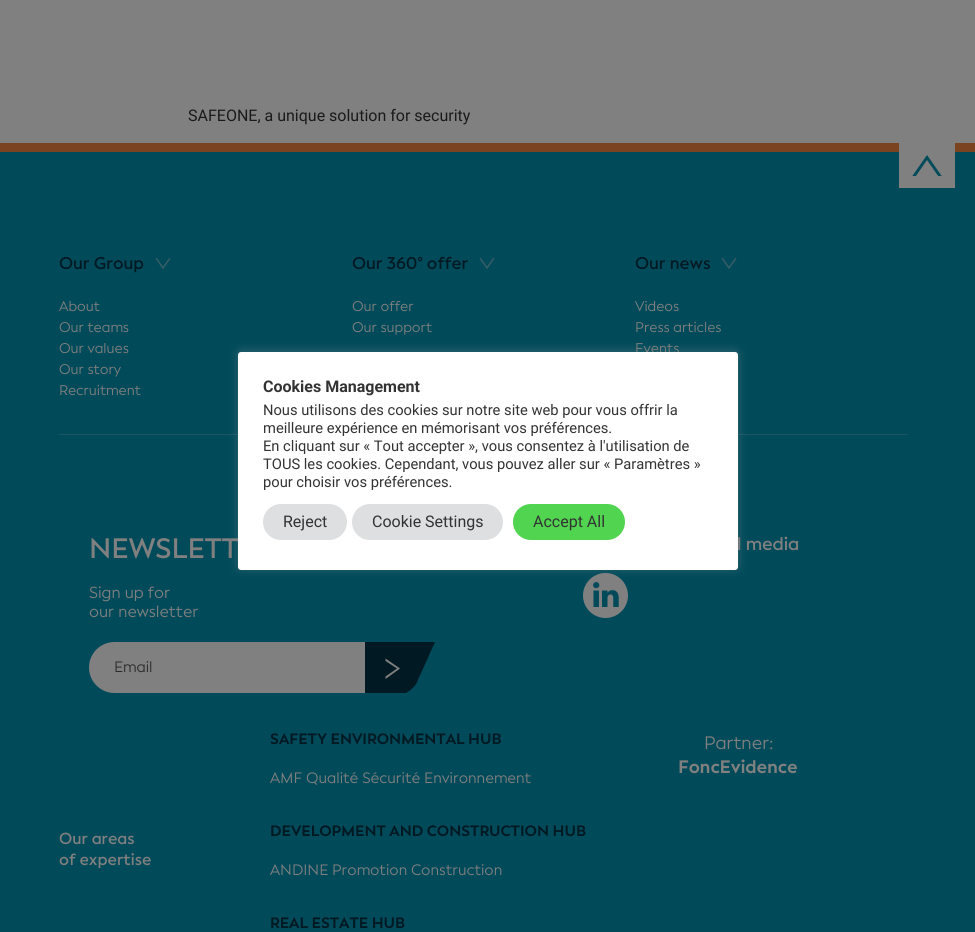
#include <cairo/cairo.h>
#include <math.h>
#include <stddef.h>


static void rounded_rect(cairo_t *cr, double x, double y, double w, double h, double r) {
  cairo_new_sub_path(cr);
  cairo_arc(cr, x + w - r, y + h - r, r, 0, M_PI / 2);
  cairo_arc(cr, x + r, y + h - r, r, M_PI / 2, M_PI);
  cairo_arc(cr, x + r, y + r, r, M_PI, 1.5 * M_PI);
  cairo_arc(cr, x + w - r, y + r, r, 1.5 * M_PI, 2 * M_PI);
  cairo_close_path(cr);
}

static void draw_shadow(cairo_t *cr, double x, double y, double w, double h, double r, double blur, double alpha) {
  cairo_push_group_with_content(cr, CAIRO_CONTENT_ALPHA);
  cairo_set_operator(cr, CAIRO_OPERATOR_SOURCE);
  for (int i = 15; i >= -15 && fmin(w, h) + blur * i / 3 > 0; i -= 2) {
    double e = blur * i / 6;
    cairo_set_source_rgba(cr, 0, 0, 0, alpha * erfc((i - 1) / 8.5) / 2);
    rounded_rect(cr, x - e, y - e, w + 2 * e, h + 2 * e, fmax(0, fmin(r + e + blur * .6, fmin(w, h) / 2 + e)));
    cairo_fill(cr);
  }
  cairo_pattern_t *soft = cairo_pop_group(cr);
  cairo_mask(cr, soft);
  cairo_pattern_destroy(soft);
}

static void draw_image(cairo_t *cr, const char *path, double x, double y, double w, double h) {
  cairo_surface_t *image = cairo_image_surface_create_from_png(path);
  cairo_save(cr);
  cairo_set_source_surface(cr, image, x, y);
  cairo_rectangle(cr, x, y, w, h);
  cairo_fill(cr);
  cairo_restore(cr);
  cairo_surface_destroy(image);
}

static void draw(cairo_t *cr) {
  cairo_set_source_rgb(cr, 128 / 255.0, 128 / 255.0, 128 / 255.0);
  cairo_paint(cr);
  cairo_set_source_rgb(cr, 0, 74 / 255.0, 90 / 255.0);
  cairo_rectangle(cr, 0, 152, 975, 780);
  cairo_fill(cr);
  cairo_set_source_rgb(cr, 123 / 255.0, 67 / 255.0, 31 / 255.0);
  cairo_rectangle(cr, 0, 143, 975, 9);
  cairo_fill(cr);
  cairo_set_source_rgb(cr, 128 / 255.0, 128 / 255.0, 128 / 255.0);
  cairo_rectangle(cr, 899, 143, 56, 45);
  cairo_fill(cr);
  cairo_save(cr);
  cairo_rectangle(cr, 912, 155, 30, 21);
  cairo_clip(cr);
  cairo_set_source_rgb(cr, 0, 74 / 255.0, 90 / 255.0);
  cairo_new_path(cr);
  cairo_move_to(cr, 915.5, 176.5);
  cairo_line_to(cr, 927, 160);
  cairo_line_to(cr, 938.5, 176.5);
  cairo_line_to(cr, 942, 176.5);
  cairo_line_to(cr, 927, 155);
  cairo_line_to(cr, 912, 176.5);
  cairo_close_path(cr);
  cairo_fill(cr);
  cairo_restore(cr);
  cairo_set_source_rgb(cr, 27 / 255.0, 85 / 255.0, 98 / 255.0);
  cairo_rectangle(cr, 59, 434, 179, 1);
  cairo_fill(cr);
  draw_image(cr, "images/1.png", 155, 258, 16, 11);
  draw_image(cr, "images/1.png", 479, 258, 16, 11);
  cairo_rectangle(cr, 738, 434, 170, 1);
  cairo_fill(cr);
  draw_image(cr, "images/1.png", 721, 258, 16, 11);
  cairo_set_source_rgb(cr, 128 / 255.0, 128 / 255.0, 128 / 255.0);
  rounded_rect(cr, 89, 642, 332, 51, 25.5);
  cairo_fill(cr);
  cairo_set_source_rgb(cr, 0, 25 / 255.0, 35 / 255.0);
  cairo_new_path(cr);
  cairo_move_to(cr, 406, 693);
  cairo_line_to(cr, 365, 693);
  cairo_line_to(cr, 365, 642);
  cairo_line_to(cr, 435, 642);
  cairo_line_to(cr, 418, 680);
  cairo_curve_to(cr, 416, 686, 411, 690, 406, 693);
  cairo_close_path(cr);
  cairo_fill(cr);
  cairo_set_source_rgb(cr, 128 / 255.0, 128 / 255.0, 128 / 255.0);
  cairo_new_path(cr);
  cairo_move_to(cr, 385.5, 661);
  cairo_line_to(cr, 397, 668.5);
  cairo_line_to(cr, 385.5, 676.5);
  cairo_line_to(cr, 385.5, 679);
  cairo_line_to(cr, 400, 668.5);
  cairo_line_to(cr, 385.5, 658.5);
  cairo_close_path(cr);
  cairo_fill(cr);
  draw_image(cr, "images/2.png", 583, 573, 45, 45);
  cairo_set_source_rgb(cr, 172 / 255.0, 171 / 255.0, 171 / 255.0);
  draw_shadow(cr, 238, 351, 500, 218, 3, 5, 0.3);
  cairo_select_font_face(cr, "Roboto", CAIRO_FONT_SLANT_NORMAL, CAIRO_FONT_WEIGHT_NORMAL);
  cairo_set_font_size(cr, 16);
  cairo_set_source_rgb(cr, 26 / 255.0, 26 / 255.0, 26 / 255.0);
  cairo_move_to(cr, 188, 121);
  cairo_show_text(cr, "SAFEONE, a unique solution for security");
  cairo_select_font_face(cr, "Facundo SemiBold", CAIRO_FONT_SLANT_NORMAL, CAIRO_FONT_WEIGHT_NORMAL);
  cairo_set_font_size(cr, 17);
  cairo_set_source_rgb(cr, 0, 25 / 255.0, 35 / 255.0);
  cairo_move_to(cr, 59, 269);
  cairo_show_text(cr, "Our Group");
  cairo_select_font_face(cr, "Facundo", CAIRO_FONT_SLANT_NORMAL, CAIRO_FONT_WEIGHT_NORMAL);
  cairo_set_font_size(cr, 14);
  cairo_set_source_rgb(cr, 128 / 255.0, 128 / 255.0, 128 / 255.0);
  cairo_move_to(cr, 59, 311);
  cairo_show_text(cr, "About");
  cairo_move_to(cr, 59, 332);
  cairo_show_text(cr, "Our teams");
  cairo_move_to(cr, 59, 353);
  cairo_show_text(cr, "Our values");
  cairo_move_to(cr, 59, 374);
  cairo_show_text(cr, "Our story");
  cairo_move_to(cr, 59, 395);
  cairo_show_text(cr, "Recruitment");
  cairo_select_font_face(cr, "Facundo SemiBold", CAIRO_FONT_SLANT_NORMAL, CAIRO_FONT_WEIGHT_NORMAL);
  cairo_set_font_size(cr, 17);
  cairo_set_source_rgb(cr, 0, 25 / 255.0, 35 / 255.0);
  cairo_move_to(cr, 352, 269);
  cairo_show_text(cr, "Our 360° offer");
  cairo_select_font_face(cr, "Facundo", CAIRO_FONT_SLANT_NORMAL, CAIRO_FONT_WEIGHT_NORMAL);
  cairo_set_font_size(cr, 14);
  cairo_set_source_rgb(cr, 128 / 255.0, 128 / 255.0, 128 / 255.0);
  cairo_move_to(cr, 352, 311);
  cairo_show_text(cr, "Our offer");
  cairo_move_to(cr, 352, 332);
  cairo_show_text(cr, "Our support");
  cairo_select_font_face(cr, "Facundo SemiBold", CAIRO_FONT_SLANT_NORMAL, CAIRO_FONT_WEIGHT_NORMAL);
  cairo_set_font_size(cr, 17);
  cairo_set_source_rgb(cr, 0, 25 / 255.0, 35 / 255.0);
  cairo_move_to(cr, 635, 269);
  cairo_show_text(cr, "Our news");
  cairo_select_font_face(cr, "Facundo", CAIRO_FONT_SLANT_NORMAL, CAIRO_FONT_WEIGHT_NORMAL);
  cairo_set_font_size(cr, 14);
  cairo_set_source_rgb(cr, 128 / 255.0, 128 / 255.0, 128 / 255.0);
  cairo_move_to(cr, 635, 311);
  cairo_show_text(cr, "Videos");
  cairo_move_to(cr, 635, 332);
  cairo_show_text(cr, "Press articles");
  cairo_move_to(cr, 635, 353);
  cairo_show_text(cr, "Events");
  cairo_select_font_face(cr, "Facundo SemiBold", CAIRO_FONT_SLANT_NORMAL, CAIRO_FONT_WEIGHT_NORMAL);
  cairo_set_font_size(cr, 28);
  cairo_move_to(cr, 89, 558);
  cairo_show_text(cr, "NEWSLETT");
  cairo_select_font_face(cr, "Facundo", CAIRO_FONT_SLANT_NORMAL, CAIRO_FONT_WEIGHT_NORMAL);
  cairo_set_font_size(cr, 16);
  cairo_move_to(cr, 89, 598);
  cairo_show_text(cr, "Sign up for");
  cairo_move_to(cr, 89, 617);
  cairo_show_text(cr, "our newsletter");
  cairo_set_font_size(cr, 15);
  cairo_set_source_rgb(cr, 43 / 255.0, 43 / 255.0, 43 / 255.0);
  cairo_move_to(cr, 114, 672);
  cairo_show_text(cr, "Email");
  cairo_select_font_face(cr, "Facundo SemiBold", CAIRO_FONT_SLANT_NORMAL, CAIRO_FONT_WEIGHT_NORMAL);
  cairo_set_font_size(cr, 18);
  cairo_set_source_rgb(cr, 128 / 255.0, 128 / 255.0, 128 / 255.0);
  cairo_move_to(cr, 737, 550);
  cairo_show_text(cr, "l media");
  cairo_select_font_face(cr, "Facundo", CAIRO_FONT_SLANT_NORMAL, CAIRO_FONT_WEIGHT_BOLD);
  cairo_set_font_size(cr, 15);
  cairo_set_source_rgb(cr, 0, 25 / 255.0, 35 / 255.0);
  cairo_move_to(cr, 270, 744);
  cairo_show_text(cr, "SAFETY ENVIRONMENTAL HUB");
  cairo_select_font_face(cr, "Facundo", CAIRO_FONT_SLANT_NORMAL, CAIRO_FONT_WEIGHT_NORMAL);
  cairo_set_source_rgb(cr, 128 / 255.0, 128 / 255.0, 128 / 255.0);
  cairo_move_to(cr, 270, 783);
  cairo_show_text(cr, "AMF Qualité Sécurité Environnement");
  cairo_select_font_face(cr, "Facundo", CAIRO_FONT_SLANT_NORMAL, CAIRO_FONT_WEIGHT_BOLD);
  cairo_set_source_rgb(cr, 0, 25 / 255.0, 35 / 255.0);
  cairo_move_to(cr, 270, 836);
  cairo_show_text(cr, "DEVELOPMENT AND CONSTRUCTION HUB");
  cairo_select_font_face(cr, "Facundo", CAIRO_FONT_SLANT_NORMAL, CAIRO_FONT_WEIGHT_NORMAL);
  cairo_set_source_rgb(cr, 128 / 255.0, 128 / 255.0, 128 / 255.0);
  cairo_move_to(cr, 270, 875);
  cairo_show_text(cr, "ANDINE Promotion Construction");
  cairo_select_font_face(cr, "Facundo", CAIRO_FONT_SLANT_NORMAL, CAIRO_FONT_WEIGHT_BOLD);
  cairo_set_source_rgb(cr, 0, 25 / 255.0, 35 / 255.0);
  cairo_move_to(cr, 270, 928);
  cairo_show_text(cr, "REAL ESTATE HUB");
  cairo_select_font_face(cr, "Facundo", CAIRO_FONT_SLANT_NORMAL, CAIRO_FONT_WEIGHT_NORMAL);
  cairo_set_font_size(cr, 18);
  cairo_set_source_rgb(cr, 128 / 255.0, 128 / 255.0, 128 / 255.0);
  cairo_move_to(cr, 704, 749);
  cairo_show_text(cr, "Partner:");
  cairo_select_font_face(cr, "Facundo", CAIRO_FONT_SLANT_NORMAL, CAIRO_FONT_WEIGHT_BOLD);
  cairo_move_to(cr, 678, 773);
  cairo_show_text(cr, "FoncEvidence");
  cairo_select_font_face(cr, "Facundo SemiBold", CAIRO_FONT_SLANT_NORMAL, CAIRO_FONT_WEIGHT_NORMAL);
  cairo_set_font_size(cr, 16);
  cairo_move_to(cr, 59, 844);
  cairo_show_text(cr, "Our areas");
  cairo_move_to(cr, 59, 865);
  cairo_show_text(cr, "of expertise");
  cairo_set_source_rgb(cr, 1, 1, 1);
  rounded_rect(cr, 238, 352, 500, 218, 3);
  cairo_fill(cr);
  cairo_select_font_face(cr, "Roboto", CAIRO_FONT_SLANT_NORMAL, CAIRO_FONT_WEIGHT_BOLD);
  cairo_set_source_rgb(cr, 51 / 255.0, 51 / 255.0, 51 / 255.0);
  cairo_move_to(cr, 263, 392);
  cairo_show_text(cr, "Cookies Management");
  cairo_select_font_face(cr, "Roboto", CAIRO_FONT_SLANT_NORMAL, CAIRO_FONT_WEIGHT_NORMAL);
  cairo_set_font_size(cr, 14.7);
  cairo_move_to(cr, 263, 415);
  cairo_show_text(cr, "Nous utilisons des cookies sur notre site web pour vous offrir la");
  cairo_move_to(cr, 263, 433);
  cairo_show_text(cr, "meilleure expérience en mémorisant vos préférences.");
  cairo_move_to(cr, 263, 451);
  cairo_show_text(cr, "En cliquant sur « Tout accepter », vous consentez à l'utilisation de");
  cairo_move_to(cr, 263, 469);
  cairo_show_text(cr, "TOUS les cookies. Cependant, vous pouvez aller sur « Paramètres »");
  cairo_move_to(cr, 263, 487);
  cairo_show_text(cr, "pour choisir vos préférences.");
  cairo_set_source_rgb(cr, 222 / 255.0, 223 / 255.0, 224 / 255.0);
  rounded_rect(cr, 263, 504, 84, 36, 18);
  cairo_fill(cr);
  cairo_set_font_size(cr, 16);
  cairo_set_source_rgb(cr, 51 / 255.0, 51 / 255.0, 51 / 255.0);
  cairo_move_to(cr, 283, 527);
  cairo_show_text(cr, "Reject");
  cairo_set_source_rgb(cr, 222 / 255.0, 223 / 255.0, 224 / 255.0);
  rounded_rect(cr, 352, 504, 151, 36, 18);
  cairo_fill(cr);
  cairo_set_source_rgb(cr, 51 / 255.0, 51 / 255.0, 51 / 255.0);
  cairo_move_to(cr, 372, 527);
  cairo_show_text(cr, "Cookie Settings");
  cairo_set_source_rgb(cr, 81 / 255.0, 212 / 255.0, 79 / 255.0);
  rounded_rect(cr, 513, 504, 112, 36, 18);
  cairo_fill(cr);
  cairo_set_source_rgb(cr, 51 / 255.0, 51 / 255.0, 51 / 255.0);
  cairo_move_to(cr, 533, 527);
  cairo_show_text(cr, "Accept All");
}

int main(void) {
  cairo_surface_t *surface = cairo_image_surface_create(CAIRO_FORMAT_RGB24, 975, 932);
  cairo_t *cr = cairo_create(surface);
  cairo_font_options_t *options = cairo_font_options_create();
  cairo_font_options_set_hint_metrics(options, CAIRO_HINT_METRICS_OFF);
  cairo_font_options_set_hint_style(options, CAIRO_HINT_STYLE_NONE);
  cairo_set_font_options(cr, options);
  cairo_set_miter_limit(cr, 4);
  draw(cr);
  cairo_surface_write_to_png(surface, "out.png");
  cairo_font_options_destroy(options);
  cairo_destroy(cr);
  cairo_surface_destroy(surface);
  return 0;
}
